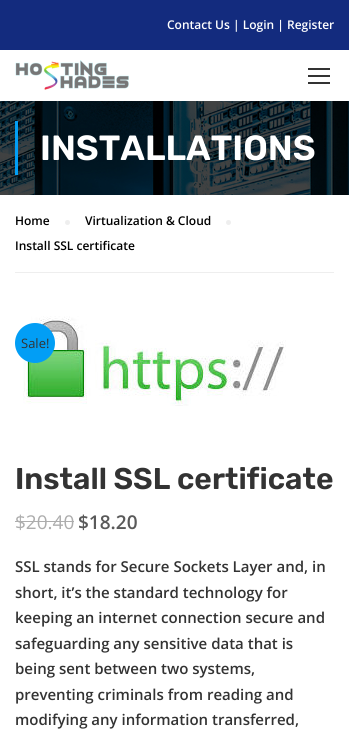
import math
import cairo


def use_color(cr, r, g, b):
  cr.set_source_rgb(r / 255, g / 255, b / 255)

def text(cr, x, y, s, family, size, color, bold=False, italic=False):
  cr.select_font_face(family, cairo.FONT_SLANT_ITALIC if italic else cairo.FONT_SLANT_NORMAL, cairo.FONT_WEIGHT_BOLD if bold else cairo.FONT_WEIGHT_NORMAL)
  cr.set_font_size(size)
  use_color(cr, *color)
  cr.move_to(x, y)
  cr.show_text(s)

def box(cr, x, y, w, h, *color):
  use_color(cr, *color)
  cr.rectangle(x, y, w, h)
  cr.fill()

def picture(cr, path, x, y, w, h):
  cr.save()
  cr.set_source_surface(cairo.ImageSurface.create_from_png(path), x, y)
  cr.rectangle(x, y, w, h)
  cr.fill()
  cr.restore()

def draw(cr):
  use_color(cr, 255, 255, 255)
  cr.paint()
  box(cr, 0, 0, 349, 50, 19, 43, 126)
  picture(cr, "img_01.png", 15, 60, 114, 30)
  box(cr, 308, 68, 22, 2, 51, 51, 51)
  box(cr, 308, 75, 22, 2, 51, 51, 51)
  box(cr, 308, 82, 22, 2, 51, 51, 51)
  picture(cr, "img_02.png", 0, 101, 349, 94)
  box(cr, 15, 121, 3, 54, 2, 158, 245)
  box(cr, 15, 272, 319, 1, 238, 238, 238)
  cr.arc(67.5, 222.5, 2.5, 0, 2 * math.pi)
  cr.fill()
  cr.arc(228.5, 222.5, 2.5, 0, 2 * math.pi)
  cr.fill()
  picture(cr, "img_03.png", 23, 316, 263, 90)
  use_color(cr, 2, 158, 245)
  cr.arc(35, 343, 20, 0, 2 * math.pi)
  cr.fill()
  box(cr, 15, 521, 59, 1, 173, 173, 173)
  text(cr, 167, 29, "Contact Us | Login | Register", "Open Sans SemiBold", 12, (255, 255, 255))
  text(cr, 40, 160, "INSTALLATIONS", "Rubik SemiBold", 35, (255, 255, 255))
  text(cr, 15, 225, "Home", "Open Sans SemiBold", 12, (0, 0, 0))
  text(cr, 85, 225, "Virtualization & Cloud", "Open Sans SemiBold", 12, (0, 0, 0))
  text(cr, 15, 250, "Install SSL certificate", "Open Sans SemiBold", 12, (0, 0, 0))
  text(cr, 21, 348, "Sale!", "Open Sans", 13, (51, 51, 51))
  text(cr, 15, 489, "Install SSL certificate", "Rubik SemiBold", 30, (51, 51, 51))
  text(cr, 15, 529, "$20.40", "Open Sans", 19, (173, 173, 173))
  text(cr, 78, 529, "$18.20", "Open Sans SemiBold", 19, (90, 90, 90))
  text(cr, 15, 572, "SSL stands for Secure Sockets Layer and, in", "Open Sans SemiBold", 15, (51, 51, 51))
  text(cr, 15, 598, "short, it’s the standard technology for", "Open Sans SemiBold", 15, (51, 51, 51))
  text(cr, 15, 623, "keeping an internet connection secure and", "Open Sans SemiBold", 15, (51, 51, 51))
  text(cr, 15, 649, "safeguarding any sensitive data that is", "Open Sans SemiBold", 15, (51, 51, 51))
  text(cr, 15, 674, "being sent between two systems,", "Open Sans SemiBold", 15, (51, 51, 51))
  text(cr, 15, 700, "preventing criminals from reading and", "Open Sans SemiBold", 15, (51, 51, 51))
  text(cr, 15, 725, "modifying any information transferred,", "Open Sans SemiBold", 15, (51, 51, 51))


surface = cairo.ImageSurface(cairo.FORMAT_RGB24, 349, 734)
cr = cairo.Context(surface)
options = cairo.FontOptions()
options.set_hint_metrics(cairo.HINT_METRICS_OFF)
options.set_hint_style(cairo.HINT_STYLE_NONE)
cr.set_font_options(options)
cr.set_miter_limit(4)
draw(cr)
surface.write_to_png("out.png")
